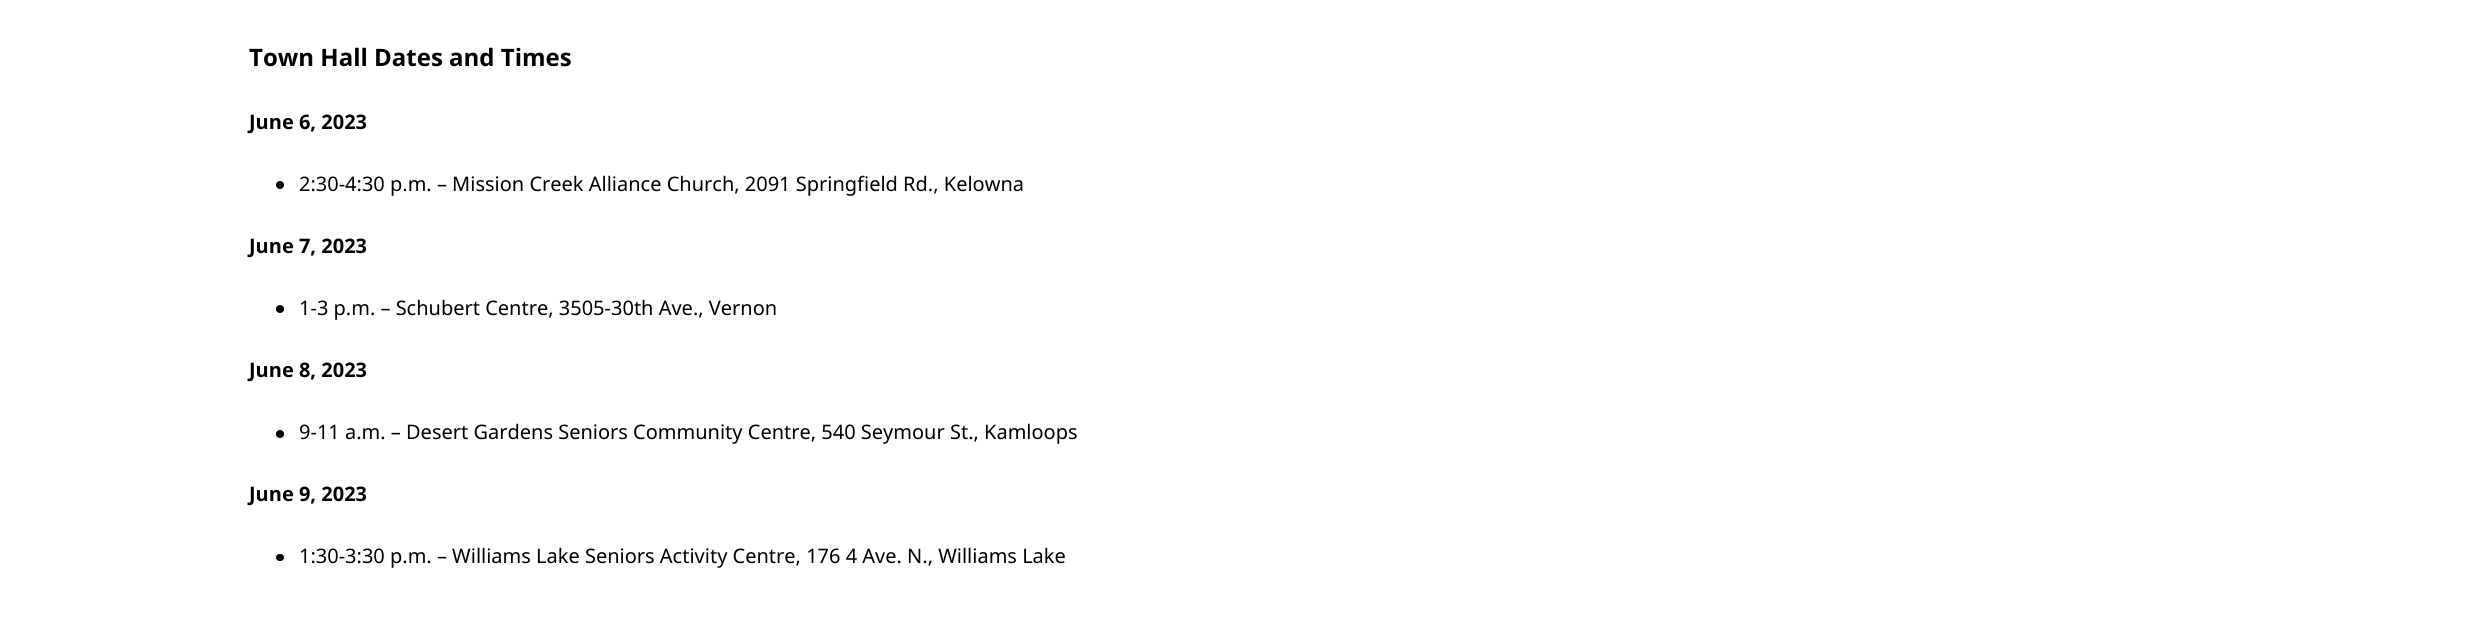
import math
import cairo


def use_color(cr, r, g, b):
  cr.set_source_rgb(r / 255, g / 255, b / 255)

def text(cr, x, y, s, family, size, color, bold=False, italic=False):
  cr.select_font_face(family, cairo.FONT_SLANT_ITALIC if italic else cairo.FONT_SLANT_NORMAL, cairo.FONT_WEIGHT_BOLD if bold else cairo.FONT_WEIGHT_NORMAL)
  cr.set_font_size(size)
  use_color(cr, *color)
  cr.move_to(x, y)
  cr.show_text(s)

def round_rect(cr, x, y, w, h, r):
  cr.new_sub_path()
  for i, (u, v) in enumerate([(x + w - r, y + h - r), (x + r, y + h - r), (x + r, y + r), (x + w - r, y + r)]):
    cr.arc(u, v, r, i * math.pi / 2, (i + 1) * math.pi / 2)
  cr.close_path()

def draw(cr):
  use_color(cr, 255, 255, 255)
  cr.paint()
  use_color(cr, 0, 0, 0)
  cr.arc(280, 185, 4, 0, 2 * math.pi)
  cr.fill()
  cr.arc(280, 309, 4, 0, 2 * math.pi)
  cr.fill()
  cr.arc(280, 434, 4, 0, 2 * math.pi)
  cr.fill()
  round_rect(cr, 276, 554, 8, 7, 3.5)
  cr.fill()
  text(cr, 249, 66, "Town Hall Dates and Times", "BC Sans", 24, (0, 0, 0), bold=True)
  text(cr, 249, 129, "June 6, 2023", "BC Sans", 20, (0, 0, 0), bold=True)
  text(cr, 299, 191, "2:30-4:30 p.m. – Mission Creek Alliance Church, 2091 Springfield Rd., Kelowna", "BC Sans", 20, (0, 0, 0))
  text(cr, 249, 253, "June 7, 2023", "BC Sans", 20, (0, 0, 0), bold=True)
  text(cr, 299, 315, "1-3 p.m. – Schubert Centre, 3505-30th Ave., Vernon", "BC Sans", 20, (0, 0, 0))
  text(cr, 249, 377, "June 8, 2023", "BC Sans", 20, (0, 0, 0), bold=True)
  text(cr, 299, 439, "9-11 a.m. – Desert Gardens Seniors Community Centre, 540 Seymour St., Kamloops", "BC Sans", 20, (0, 0, 0))
  text(cr, 249, 501, "June 9, 2023", "BC Sans", 20, (0, 0, 0), bold=True)
  text(cr, 299, 563, "1:30-3:30 p.m. – Williams Lake Seniors Activity Centre, 176 4 Ave. N., Williams Lake", "BC Sans", 20, (0, 0, 0))


surface = cairo.ImageSurface(cairo.FORMAT_RGB24, 2486, 619)
cr = cairo.Context(surface)
options = cairo.FontOptions()
options.set_hint_metrics(cairo.HINT_METRICS_OFF)
options.set_hint_style(cairo.HINT_STYLE_NONE)
cr.set_font_options(options)
cr.set_miter_limit(4)
draw(cr)
surface.write_to_png("out.png")
